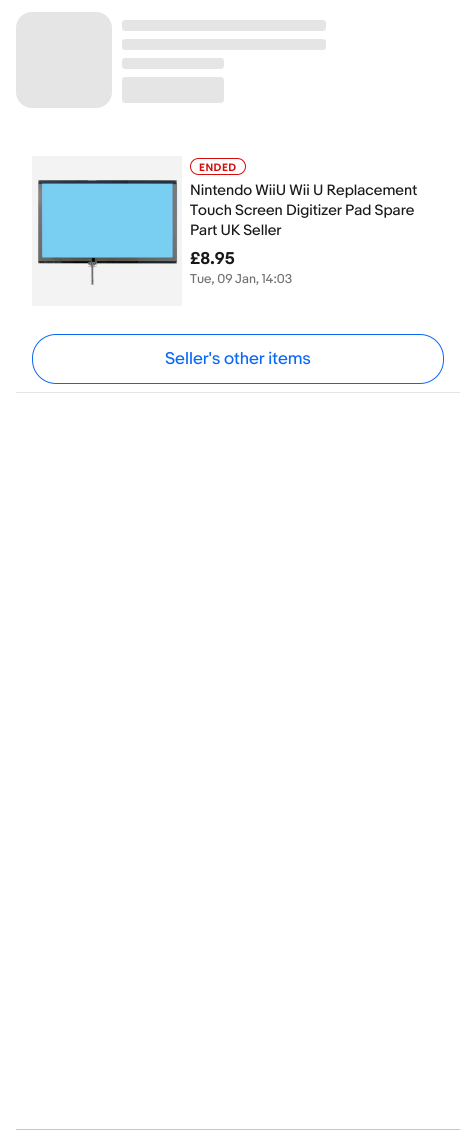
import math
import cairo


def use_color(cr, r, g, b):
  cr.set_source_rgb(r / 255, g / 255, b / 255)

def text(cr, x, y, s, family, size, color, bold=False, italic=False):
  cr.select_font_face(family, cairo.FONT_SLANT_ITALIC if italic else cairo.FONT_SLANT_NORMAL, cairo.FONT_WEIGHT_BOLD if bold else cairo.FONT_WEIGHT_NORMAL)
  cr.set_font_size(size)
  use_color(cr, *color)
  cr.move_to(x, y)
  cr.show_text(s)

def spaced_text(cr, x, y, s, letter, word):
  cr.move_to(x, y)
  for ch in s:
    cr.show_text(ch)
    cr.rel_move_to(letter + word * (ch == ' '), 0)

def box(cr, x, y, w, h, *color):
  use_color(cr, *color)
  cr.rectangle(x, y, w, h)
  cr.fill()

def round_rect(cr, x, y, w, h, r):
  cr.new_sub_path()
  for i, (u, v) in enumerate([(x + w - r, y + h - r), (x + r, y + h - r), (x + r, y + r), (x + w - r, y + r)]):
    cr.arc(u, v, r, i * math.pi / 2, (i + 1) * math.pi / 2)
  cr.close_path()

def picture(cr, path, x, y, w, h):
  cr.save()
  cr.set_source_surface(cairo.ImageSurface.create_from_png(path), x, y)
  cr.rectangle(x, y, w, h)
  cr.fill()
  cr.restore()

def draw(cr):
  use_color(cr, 255, 255, 255)
  cr.paint()
  use_color(cr, 229, 229, 229)
  round_rect(cr, 16, 12, 96, 96, 16)
  cr.fill()
  round_rect(cr, 122, 20, 204, 11, 3)
  cr.fill()
  round_rect(cr, 122, 39, 204, 11, 3)
  cr.fill()
  round_rect(cr, 122, 58, 102, 11, 3)
  cr.fill()
  round_rect(cr, 122, 77, 102, 26, 3)
  cr.fill()
  box(cr, 16, 392, 444, 1, 229, 229, 229)
  picture(cr, "img_01.png", 38, 180, 140, 105)
  cr.set_source_rgba(0, 0, 0, 0.05)
  cr.rectangle(32, 156, 150, 150)
  cr.fill()
  round_rect(cr, 190.5, 158.5, 55, 16, 8)
  use_color(cr, 213, 11, 11)
  cr.set_line_width(1)
  cr.stroke()
  round_rect(cr, 32.5, 334.5, 411, 49, 23.5)
  use_color(cr, 9, 104, 246)
  cr.stroke()
  box(cr, 16, 1129, 444, 1, 199, 199, 199)
  cr.select_font_face("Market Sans", cairo.FONT_SLANT_NORMAL, cairo.FONT_WEIGHT_BOLD)
  cr.set_font_size(10)
  use_color(cr, 213, 11, 11)
  spaced_text(cr, 199, 171, "ENDED", 0.5, 0)
  text(cr, 190, 195, "Nintendo WiiU Wii U Replacement", "Market Sans", 14, (25, 25, 25))
  text(cr, 190, 215, "Touch Screen Digitizer Pad Spare", "Market Sans", 14, (25, 25, 25))
  text(cr, 190, 235, "Part UK Seller", "Market Sans", 14, (25, 25, 25))
  text(cr, 190, 264, "£8.95", "Market Sans", 16, (25, 25, 25), bold=True)
  text(cr, 190, 283, "Tue, 09 Jan, 14:03", "Market Sans", 12, (112, 112, 112))
  text(cr, 165, 364, "Seller's other items", "Market Sans", 16, (9, 104, 246))


surface = cairo.ImageSurface(cairo.FORMAT_RGB24, 476, 1140)
cr = cairo.Context(surface)
options = cairo.FontOptions()
options.set_hint_metrics(cairo.HINT_METRICS_OFF)
options.set_hint_style(cairo.HINT_STYLE_NONE)
cr.set_font_options(options)
cr.set_miter_limit(4)
draw(cr)
surface.write_to_png("out.png")
